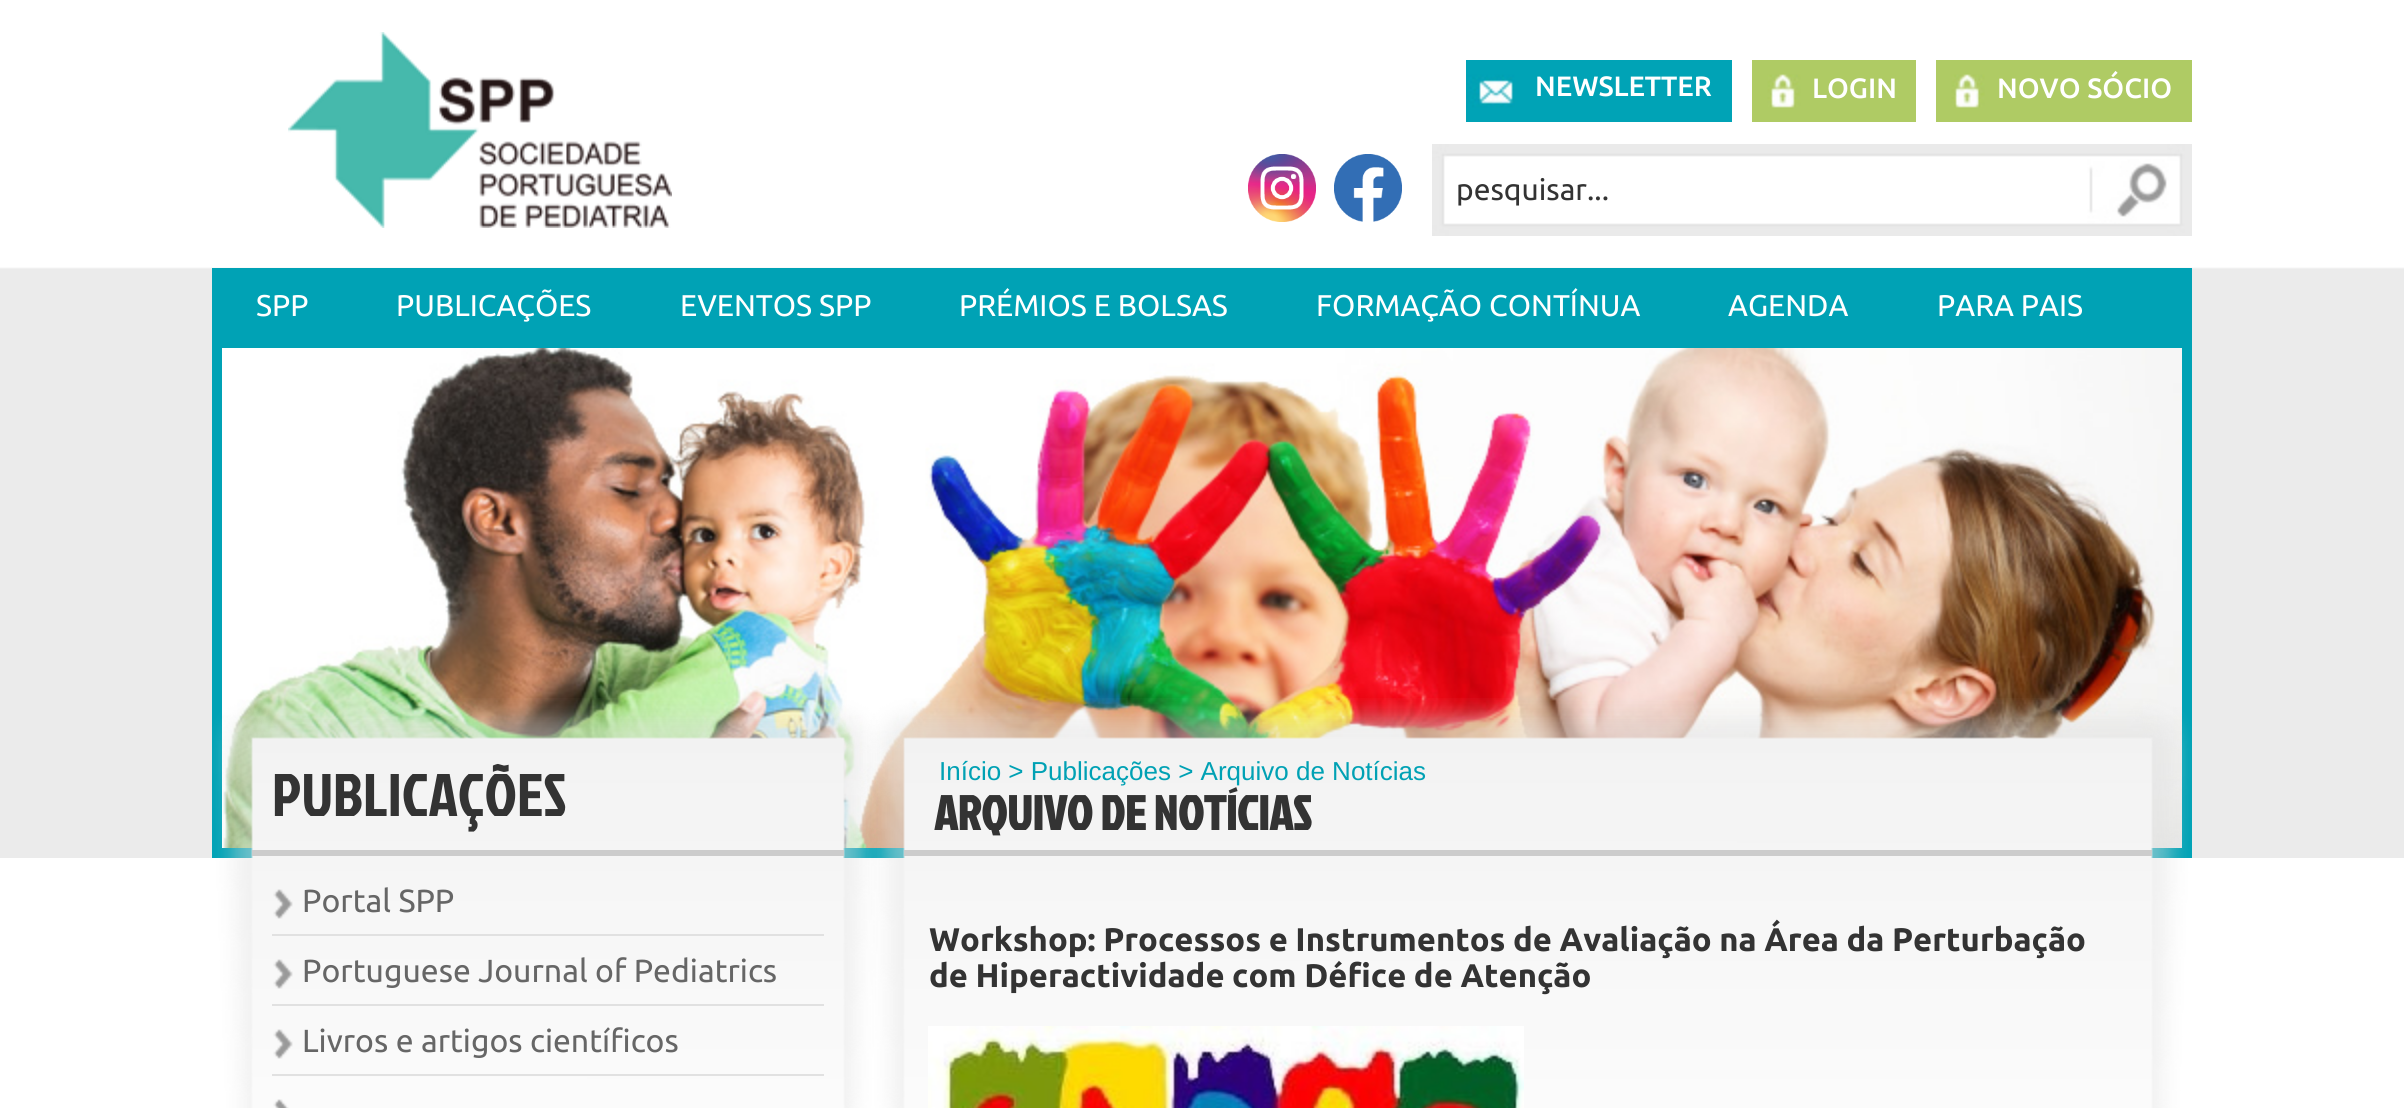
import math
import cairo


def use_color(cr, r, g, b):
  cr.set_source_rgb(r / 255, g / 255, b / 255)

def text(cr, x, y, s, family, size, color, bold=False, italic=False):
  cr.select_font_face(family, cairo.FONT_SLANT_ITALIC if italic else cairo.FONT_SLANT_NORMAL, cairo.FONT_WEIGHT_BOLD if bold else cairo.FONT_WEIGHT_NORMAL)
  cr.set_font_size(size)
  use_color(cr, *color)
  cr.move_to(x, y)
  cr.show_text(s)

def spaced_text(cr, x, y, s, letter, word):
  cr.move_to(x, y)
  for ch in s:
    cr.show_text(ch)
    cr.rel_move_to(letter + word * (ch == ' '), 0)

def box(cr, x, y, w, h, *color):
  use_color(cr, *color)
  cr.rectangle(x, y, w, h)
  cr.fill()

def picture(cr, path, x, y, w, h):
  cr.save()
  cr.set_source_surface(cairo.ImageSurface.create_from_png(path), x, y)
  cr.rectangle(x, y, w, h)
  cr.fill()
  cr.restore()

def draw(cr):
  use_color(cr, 255, 255, 255)
  cr.paint()
  picture(cr, "img_01.png", 0, 267, 2404, 591)
  picture(cr, "img_02.png", 288, 32, 384, 196)
  picture(cr, "img_03.png", 1466, 60, 266, 62)
  picture(cr, "img_04.png", 1752, 60, 164, 62)
  picture(cr, "img_05.png", 1936, 60, 256, 62)
  picture(cr, "img_06.png", 1248, 154, 68, 68)
  picture(cr, "img_07.png", 1334, 154, 68, 68)
  picture(cr, "img_08.png", 1432, 144, 760, 92)
  box(cr, 212, 268, 1980, 590, 0, 162, 181)
  picture(cr, "img_09.png", 222, 348, 1960, 500)
  picture(cr, "img_10.png", 212, 698, 668, 410)
  box(cr, 252, 850, 592, 6, 204, 204, 204)
  picture(cr, "img_11.png", 273, 889, 20, 30)
  box(cr, 272, 934, 552, 2, 225, 225, 225)
  picture(cr, "img_12.png", 273, 959, 20, 30)
  box(cr, 272, 1004, 552, 2, 225, 225, 225)
  picture(cr, "img_13.png", 273, 1029, 20, 30)
  box(cr, 272, 1074, 552, 2, 225, 225, 225)
  picture(cr, "img_14.png", 273, 1099, 16, 9)
  picture(cr, "img_15.png", 867, 698, 1325, 410)
  box(cr, 904, 850, 1248, 6, 204, 204, 204)
  picture(cr, "img_16.png", 928, 1026, 596, 82)
  text(cr, 1535, 96, "NEWSLETTER", "Ubuntu Medium", 28, (255, 255, 255))
  text(cr, 1812, 98, "LOGIN", "Ubuntu Medium", 28, (255, 255, 255))
  text(cr, 1997, 98, "NOVO SÓCIO", "Ubuntu Medium", 28, (255, 255, 255))
  text(cr, 1456, 200, "pesquisar...", "Ubuntu", 30, (51, 51, 51))
  text(cr, 256, 316, "SPP", "Ubuntu", 30, (255, 255, 255))
  text(cr, 396, 316, "PUBLICAÇÕES", "Ubuntu", 30, (255, 255, 255))
  text(cr, 680, 316, "EVENTOS SPP", "Ubuntu", 30, (255, 255, 255))
  text(cr, 959, 316, "PRÉMIOS E BOLSAS", "Ubuntu", 30, (255, 255, 255))
  text(cr, 1316, 316, "FORMAÇÃO CONTÍNUA", "Ubuntu", 30, (255, 255, 255))
  text(cr, 1728, 316, "AGENDA", "Ubuntu", 30, (255, 255, 255))
  text(cr, 1937, 316, "PARA PAIS", "Ubuntu", 30, (255, 255, 255))
  text(cr, 272, 816, "PUBLICAÇÕES", "Jockey One", 60, (51, 51, 51))
  text(cr, 302, 912, "Portal SPP", "Ubuntu", 32, (102, 102, 102))
  text(cr, 302, 982, "Portuguese Journal of Pediatrics", "Ubuntu", 32, (102, 102, 102))
  text(cr, 302, 1052, "Livros e artigos científicos", "Ubuntu", 32, (102, 102, 102))
  text(cr, 939, 780, "Início > Publicações > Arquivo de Notícias", "Liberation Sans", 26, (0, 161, 180))
  text(cr, 934, 830, "ARQUIVO DE NOTÍCIAS", "Jockey One", 48, (51, 51, 51), bold=True)
  cr.select_font_face("Ubuntu", cairo.FONT_SLANT_NORMAL, cairo.FONT_WEIGHT_BOLD)
  cr.set_font_size(32.75)
  spaced_text(cr, 929, 951, "Workshop: Processos e Instrumentos de Avaliação na Área da Perturbação", 0, -0.25)
  spaced_text(cr, 929, 987, "de Hiperactividade com Défice de Atenção", 0, -0.25)


surface = cairo.ImageSurface(cairo.FORMAT_RGB24, 2404, 1108)
cr = cairo.Context(surface)
options = cairo.FontOptions()
options.set_hint_metrics(cairo.HINT_METRICS_OFF)
options.set_hint_style(cairo.HINT_STYLE_NONE)
cr.set_font_options(options)
cr.set_miter_limit(4)
draw(cr)
surface.write_to_png("out.png")
